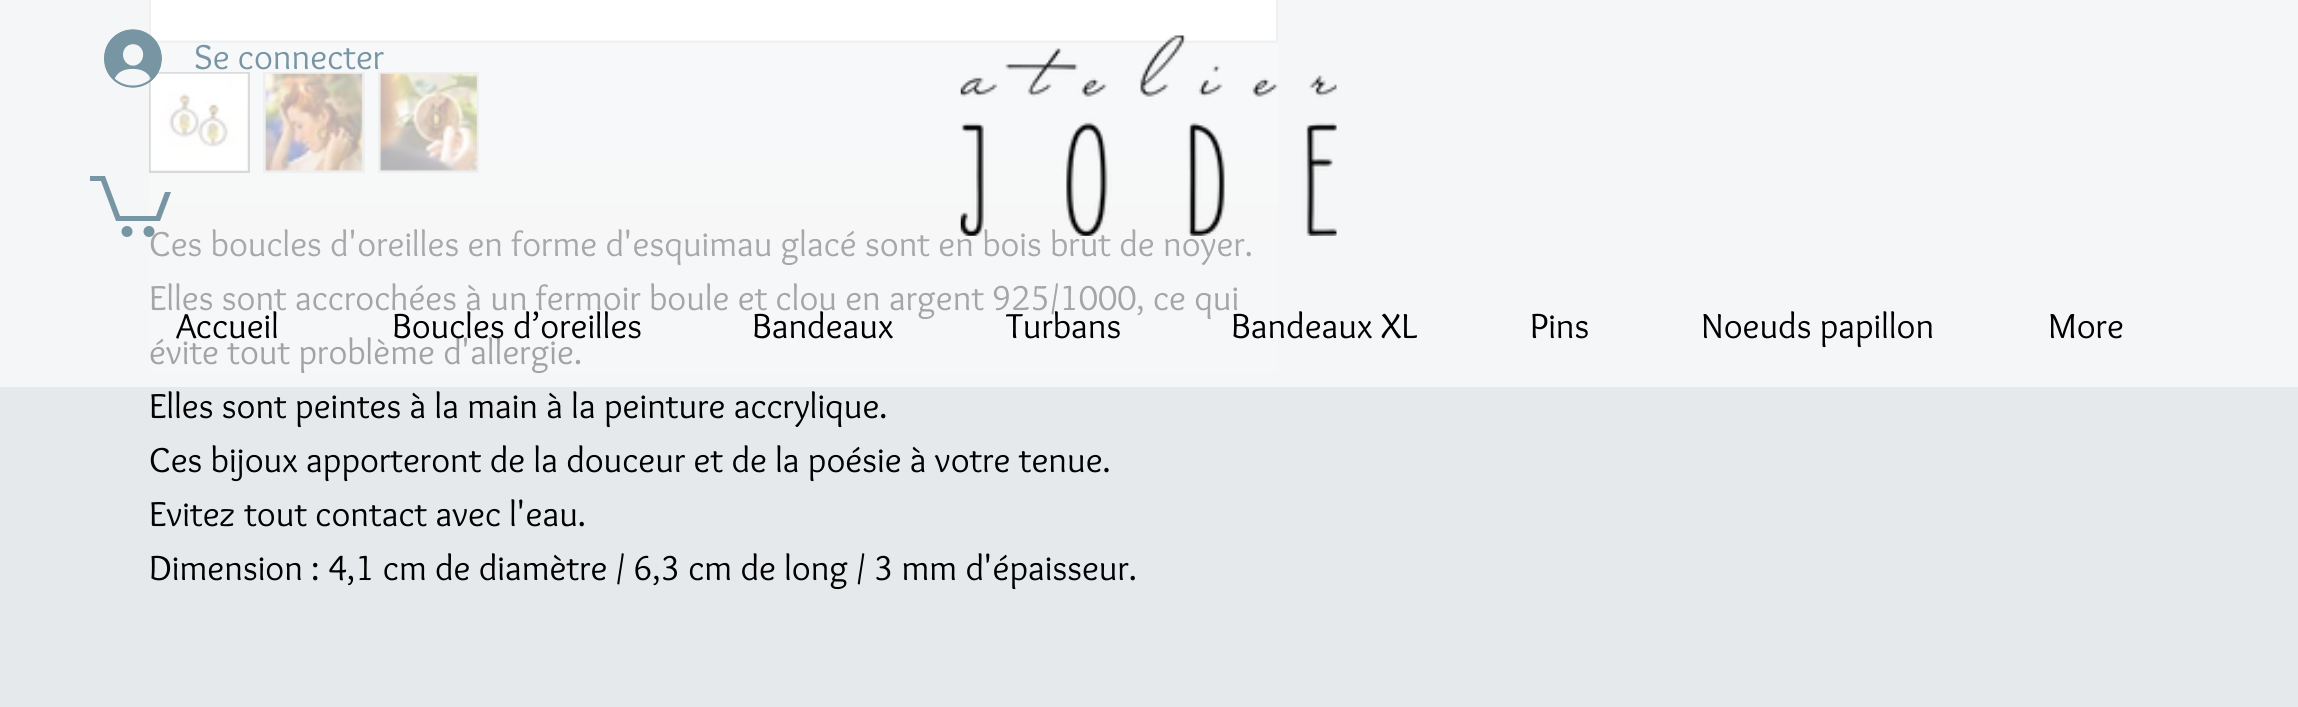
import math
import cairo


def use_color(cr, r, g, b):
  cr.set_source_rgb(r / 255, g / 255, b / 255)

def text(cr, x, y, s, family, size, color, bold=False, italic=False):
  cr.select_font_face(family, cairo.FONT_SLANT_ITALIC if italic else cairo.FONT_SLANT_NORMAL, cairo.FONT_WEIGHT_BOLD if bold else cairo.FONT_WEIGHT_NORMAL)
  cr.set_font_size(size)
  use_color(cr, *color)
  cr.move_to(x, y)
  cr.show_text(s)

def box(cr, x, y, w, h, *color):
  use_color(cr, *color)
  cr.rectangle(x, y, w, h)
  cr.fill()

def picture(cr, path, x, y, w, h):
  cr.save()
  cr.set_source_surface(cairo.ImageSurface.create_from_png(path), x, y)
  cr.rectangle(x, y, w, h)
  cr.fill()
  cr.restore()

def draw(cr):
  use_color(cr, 230, 233, 235)
  cr.paint()
  box(cr, 0, 0, 2298, 387, 245, 246, 247)
  use_color(cr, 119, 149, 163)
  cr.arc(127, 231.5, 5.5, 0, 2 * math.pi)
  cr.fill()
  cr.rectangle(150, -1, 1127, 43)
  use_color(cr, 235, 235, 235)
  cr.stroke()
  box(cr, 151, 0, 1125, 40, 255, 255, 255)
  use_color(cr, 235, 235, 235)
  cr.rectangle(150, 73, 99, 99)
  cr.fill_preserve()
  use_color(cr, 209, 208, 208)
  cr.stroke()
  picture(cr, "img_04.png", 150, 73, 98, 98)
  box(cr, 263, 72, 102, 101, 235, 235, 235)
  picture(cr, "img_05.png", 265, 73, 98, 98)
  box(cr, 378, 72, 101, 101, 235, 235, 235)
  picture(cr, "img_06.png", 379, 73, 99, 98)
  text(cr, 1530, 338, "Pins", "Overlock", 36, (0, 0, 0))
  text(cr, 1701, 338, "Noeuds papillon", "Overlock", 36, (0, 0, 0))
  text(cr, 2048, 338, "More", "Overlock", 36, (0, 0, 0))
  text(cr, 149, 256, "Ces boucles d'oreilles en forme d'esquimau glacé sont en bois brut de noyer.", "Overlock", 36, (153, 153, 153))
  text(cr, 149, 310, "Elles sont accrochées à un fermoir boule et clou en argent 925/1000, ce qui", "Overlock", 36, (153, 153, 153))
  text(cr, 149, 364, "évite tout problème d'allergie.", "Overlock", 36, (153, 153, 153))
  picture(cr, "img_01.png", 149, 0, 1129, 373)
  text(cr, 1231, 338, "Bandeaux XL", "Overlock", 36, (0, 0, 0))
  text(cr, 1006, 338, "Turbans", "Overlock", 36, (0, 0, 0))
  text(cr, 752, 338, "Bandeaux", "Overlock", 36, (0, 0, 0))
  text(cr, 392, 338, "Boucles d’oreilles", "Overlock", 36, (0, 0, 0))
  text(cr, 176, 338, "Accueil", "Overlock", 36, (0, 0, 0))
  picture(cr, "img_03.png", 960, 35, 377, 201)
  use_color(cr, 119, 149, 163)
  cr.arc(149, 231.5, 5.5, 0, 2 * math.pi)
  cr.fill()
  cr.new_path()
  cr.move_to(171, 192)
  cr.line_to(160, 221)
  cr.line_to(116, 221)
  cr.line_to(101, 181)
  cr.line_to(90, 181)
  cr.line_to(90, 176)
  cr.line_to(105, 176)
  cr.line_to(120, 216)
  cr.line_to(156, 216)
  cr.line_to(165, 192)
  cr.fill()
  picture(cr, "img_02.png", 104, 29, 58, 59)
  text(cr, 194, 69, "Se connecter", "Overlock", 36, (119, 149, 163))
  text(cr, 149, 418, "Elles sont peintes à la main à la peinture accrylique.", "Overlock", 36, (0, 0, 0))
  text(cr, 149, 472, "Ces bijoux apporteront de la douceur et de la poésie à votre tenue.", "Overlock", 36, (0, 0, 0))
  text(cr, 149, 526, "Evitez tout contact avec l'eau.", "Overlock", 36, (0, 0, 0))
  text(cr, 149, 580, "Dimension : 4,1 cm de diamètre / 6,3 cm de long / 3 mm d'épaisseur.", "Overlock", 36, (0, 0, 0))


surface = cairo.ImageSurface(cairo.FORMAT_RGB24, 2298, 707)
cr = cairo.Context(surface)
options = cairo.FontOptions()
options.set_hint_metrics(cairo.HINT_METRICS_OFF)
options.set_hint_style(cairo.HINT_STYLE_NONE)
cr.set_font_options(options)
cr.set_miter_limit(4)
draw(cr)
surface.write_to_png("out.png")
